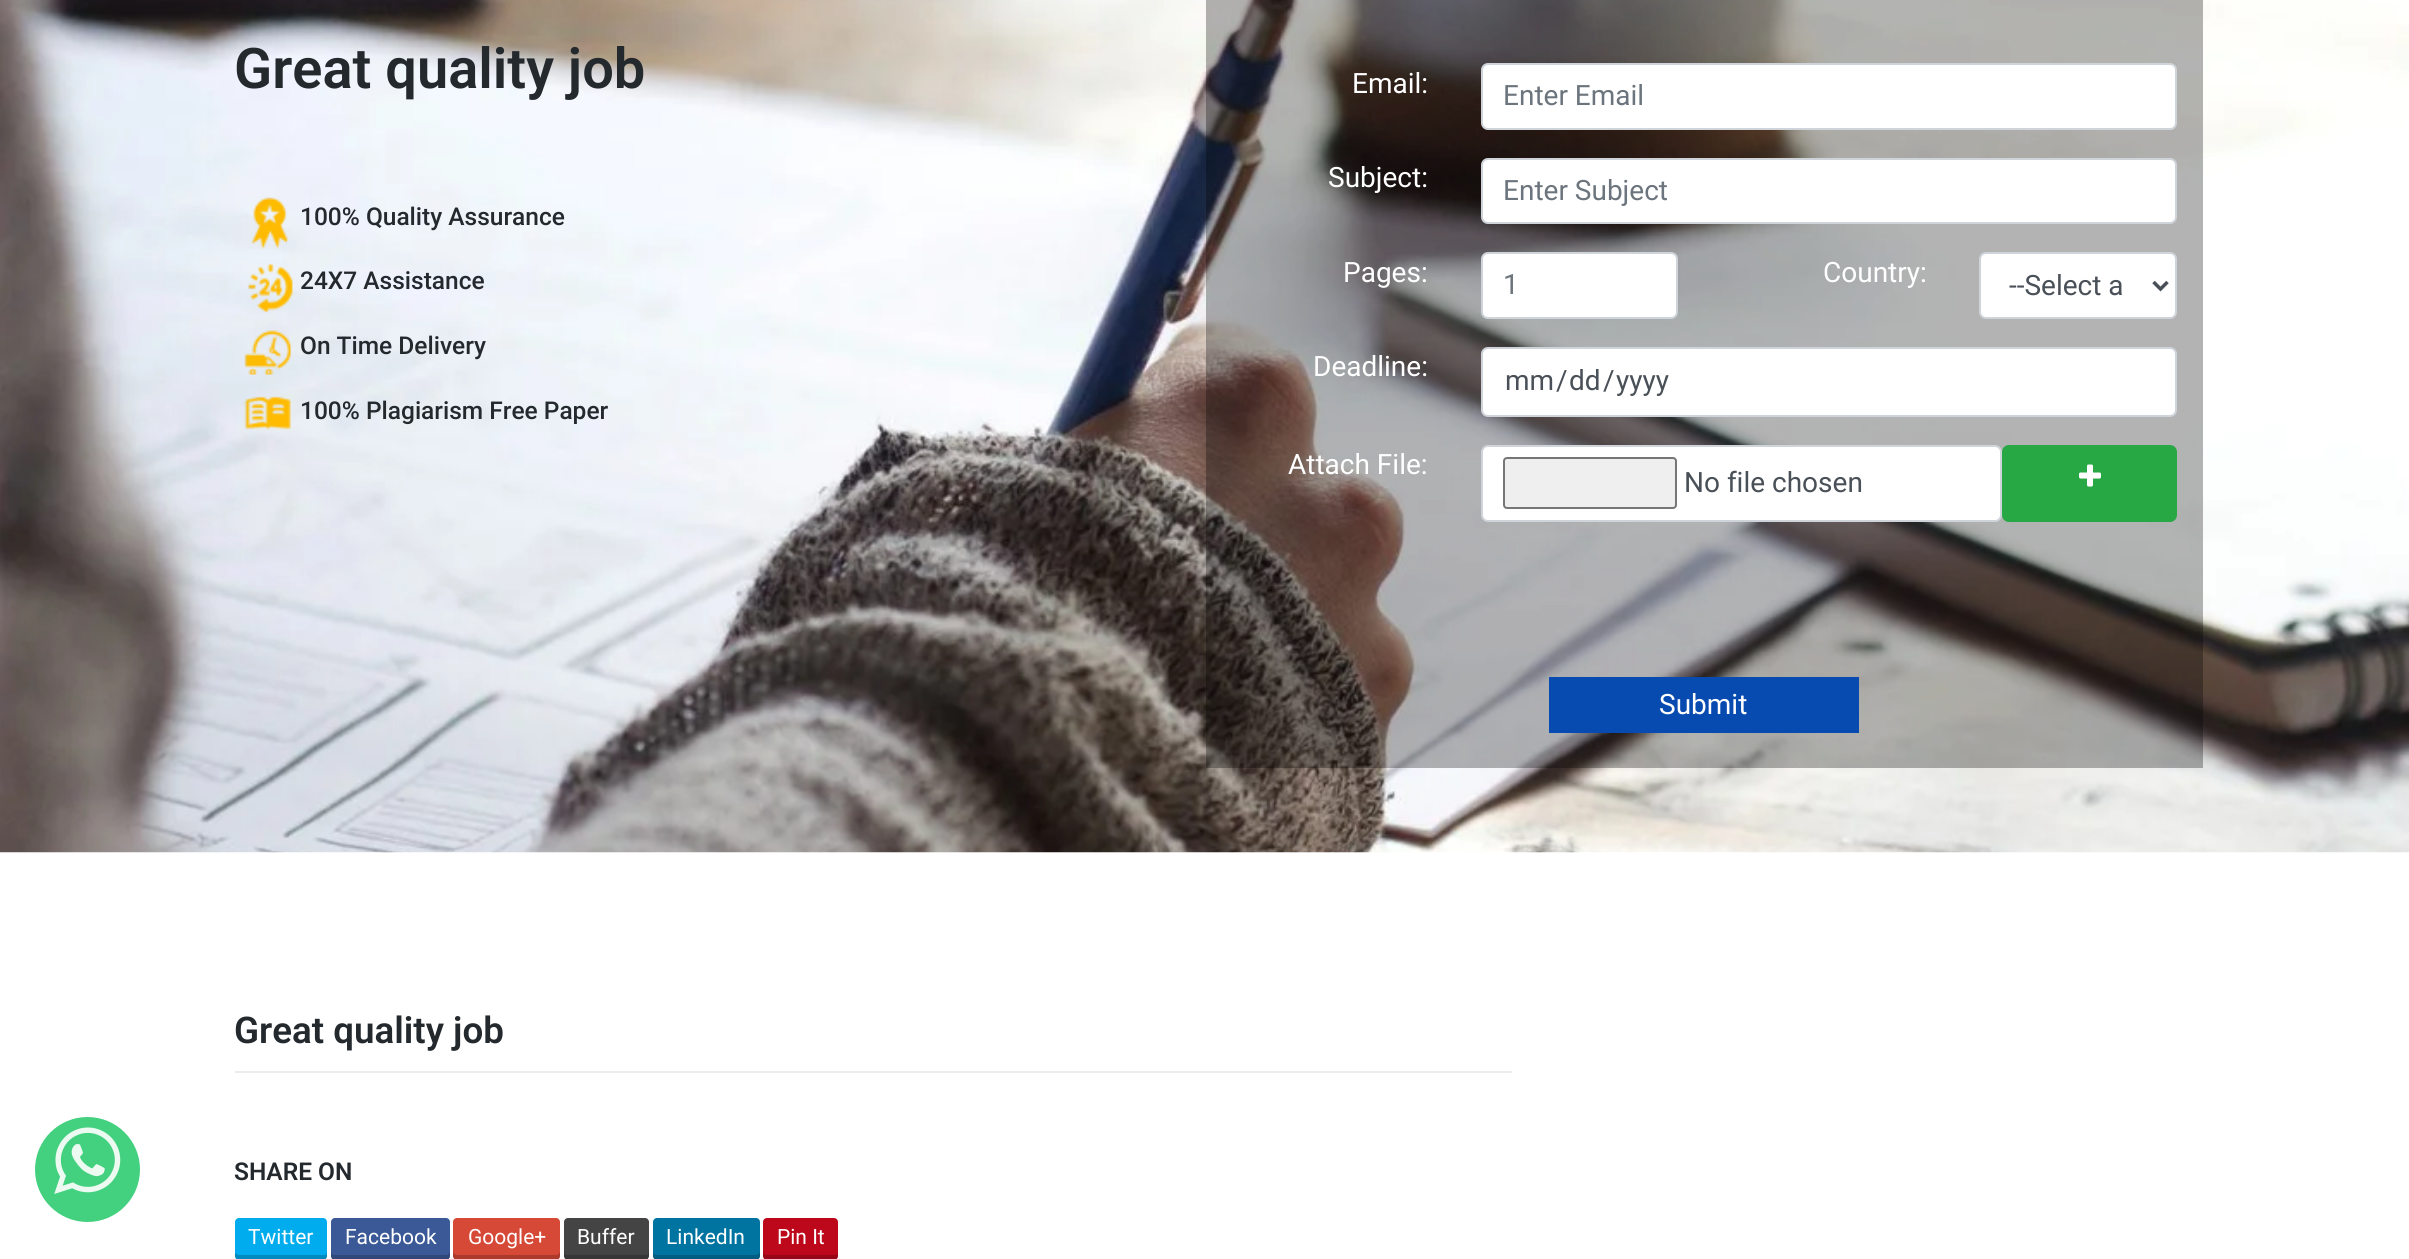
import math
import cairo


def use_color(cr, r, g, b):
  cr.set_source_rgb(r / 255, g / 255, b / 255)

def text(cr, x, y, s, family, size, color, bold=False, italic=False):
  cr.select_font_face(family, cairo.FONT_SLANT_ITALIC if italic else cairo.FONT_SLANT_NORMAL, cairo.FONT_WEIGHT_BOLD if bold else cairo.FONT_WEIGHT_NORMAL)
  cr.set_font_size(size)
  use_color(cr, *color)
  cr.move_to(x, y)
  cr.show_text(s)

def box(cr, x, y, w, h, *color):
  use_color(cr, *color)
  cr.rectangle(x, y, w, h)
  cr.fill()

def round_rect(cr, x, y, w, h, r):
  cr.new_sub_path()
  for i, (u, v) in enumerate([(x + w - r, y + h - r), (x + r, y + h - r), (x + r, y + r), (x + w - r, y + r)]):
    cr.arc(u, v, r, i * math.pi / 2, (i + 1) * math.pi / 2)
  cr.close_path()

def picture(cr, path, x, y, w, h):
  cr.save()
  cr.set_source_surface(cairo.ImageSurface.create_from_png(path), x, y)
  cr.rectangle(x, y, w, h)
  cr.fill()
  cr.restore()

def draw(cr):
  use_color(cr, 255, 255, 255)
  cr.paint()
  picture(cr, "img_01.png", 0, 0, 2409, 853)
  picture(cr, "img_02.png", 251, 197, 37, 52)
  picture(cr, "img_03.png", 248, 263, 45, 49)
  picture(cr, "img_04.png", 244, 330, 47, 45)
  picture(cr, "img_05.png", 244, 396, 47, 34)
  cr.set_source_rgba(0, 0, 0, 0.3)
  cr.rectangle(1206, 0, 997, 768)
  cr.fill()
  use_color(cr, 255, 255, 255)
  round_rect(cr, 1482, 64, 694, 65, 6)
  cr.fill_preserve()
  use_color(cr, 206, 212, 218)
  cr.stroke()
  use_color(cr, 255, 255, 255)
  round_rect(cr, 1482, 159, 694, 64, 6)
  cr.fill_preserve()
  use_color(cr, 206, 212, 218)
  cr.stroke()
  use_color(cr, 255, 255, 255)
  round_rect(cr, 1482, 253, 195, 65, 6)
  cr.fill_preserve()
  use_color(cr, 206, 212, 218)
  cr.stroke()
  use_color(cr, 255, 255, 255)
  round_rect(cr, 1980, 253, 196, 65, 6)
  cr.fill_preserve()
  use_color(cr, 206, 212, 218)
  cr.stroke()
  cr.new_path()
  cr.move_to(2153.5, 282)
  cr.line_to(2160.5, 289)
  cr.line_to(2167.5, 282)
  use_color(cr, 73, 80, 87)
  cr.set_line_width(3.5)
  cr.stroke()
  use_color(cr, 255, 255, 255)
  round_rect(cr, 1482, 348, 694, 68, 6)
  cr.fill_preserve()
  use_color(cr, 206, 212, 218)
  cr.set_line_width(2)
  cr.stroke()
  use_color(cr, 255, 255, 255)
  round_rect(cr, 1482, 446, 519, 75, 6)
  cr.fill_preserve()
  use_color(cr, 206, 212, 218)
  cr.stroke()
  use_color(cr, 239, 239, 239)
  round_rect(cr, 1504, 458, 172, 50, 3)
  cr.fill_preserve()
  use_color(cr, 118, 118, 118)
  cr.stroke()
  use_color(cr, 40, 167, 69)
  round_rect(cr, 2003, 446, 173, 75, 6)
  cr.fill_preserve()
  cr.stroke()
  picture(cr, "img_06.png", 2079, 464, 22, 23)
  box(cr, 1549, 677, 310, 56, 7, 75, 177)
  use_color(cr, 67, 209, 127)
  cr.arc(87.5, 1169.5, 52.5, 0, 2 * math.pi)
  cr.fill()
  picture(cr, "img_07.png", 54, 1127, 67, 67)
  box(cr, 235, 1071, 1277, 2, 234, 236, 239)
  use_color(cr, 0, 172, 237)
  round_rect(cr, 235, 1218, 92, 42, 4)
  cr.fill()
  cr.set_source_rgba(0, 0, 0, 0.2)
  cr.new_path()
  cr.move_to(235, 1253)
  cr.line_to(235, 1256)
  cr.curve_to(235, 1258, 237, 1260, 239, 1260)
  cr.line_to(323, 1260)
  cr.curve_to(325, 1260, 327, 1258, 327, 1256)
  cr.line_to(327, 1251)
  cr.line_to(327, 1252)
  cr.curve_to(327, 1253, 326, 1255, 325, 1255)
  cr.line_to(238, 1255)
  cr.close_path()
  cr.fill()
  use_color(cr, 59, 89, 151)
  round_rect(cr, 331, 1218, 119, 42, 4)
  cr.fill()
  cr.set_source_rgba(0, 0, 0, 0.2)
  cr.new_path()
  cr.move_to(331, 1251)
  cr.line_to(331, 1256)
  cr.curve_to(331, 1258, 333, 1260, 335, 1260)
  cr.line_to(446, 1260)
  cr.curve_to(448, 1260, 450, 1258, 450, 1256)
  cr.line_to(450, 1251)
  cr.curve_to(450, 1253, 448, 1255, 446, 1255)
  cr.line_to(334, 1255)
  cr.curve_to(332, 1255, 331, 1253, 331, 1251)
  cr.close_path()
  cr.fill()
  use_color(cr, 214, 73, 55)
  round_rect(cr, 453, 1218, 107, 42, 4)
  cr.fill()
  cr.set_source_rgba(0, 0, 0, 0.2)
  cr.new_path()
  cr.move_to(453, 1251)
  cr.line_to(453, 1256)
  cr.curve_to(453, 1258, 455, 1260, 457, 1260)
  cr.line_to(556, 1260)
  cr.curve_to(558, 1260, 560, 1258, 560, 1256)
  cr.line_to(560, 1251)
  cr.curve_to(560, 1253, 558, 1255, 556, 1255)
  cr.line_to(457, 1255)
  cr.curve_to(455, 1255, 453, 1253, 453, 1251)
  cr.close_path()
  cr.fill()
  use_color(cr, 68, 68, 68)
  round_rect(cr, 564, 1218, 85, 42, 4)
  cr.fill()
  cr.set_source_rgba(0, 0, 0, 0.2)
  cr.new_path()
  cr.move_to(564, 1251)
  cr.curve_to(564, 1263, 567, 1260, 581, 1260)
  cr.line_to(632, 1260)
  cr.curve_to(646, 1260, 649, 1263, 649, 1251)
  cr.curve_to(649, 1253, 648, 1255, 646, 1255)
  cr.line_to(567, 1255)
  cr.curve_to(565, 1255, 564, 1253, 564, 1251)
  cr.close_path()
  cr.fill()
  use_color(cr, 0, 116, 161)
  round_rect(cr, 653, 1218, 107, 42, 4)
  cr.fill()
  cr.set_source_rgba(0, 0, 0, 0.2)
  cr.new_path()
  cr.move_to(653, 1251)
  cr.line_to(653, 1256)
  cr.curve_to(653, 1258, 655, 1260, 657, 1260)
  cr.line_to(756, 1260)
  cr.curve_to(758, 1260, 760, 1258, 760, 1256)
  cr.line_to(760, 1251)
  cr.curve_to(760, 1253, 758, 1255, 756, 1255)
  cr.line_to(656, 1255)
  cr.curve_to(654, 1255, 653, 1253, 653, 1251)
  cr.close_path()
  cr.fill()
  use_color(cr, 189, 8, 28)
  round_rect(cr, 763, 1218, 75, 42, 4)
  cr.fill()
  cr.set_source_rgba(0, 0, 0, 0.2)
  cr.new_path()
  cr.move_to(763, 1251)
  cr.curve_to(763, 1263, 765, 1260, 778, 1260)
  cr.line_to(823, 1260)
  cr.curve_to(836, 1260, 838, 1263, 838, 1251)
  cr.curve_to(838, 1253, 837, 1255, 835, 1255)
  cr.line_to(766, 1255)
  cr.curve_to(765, 1255, 763, 1253, 763, 1251)
  cr.close_path()
  cr.fill()
  text(cr, 234, 88, "Great quality job", "Roboto SemiBold", 56, (36, 41, 46))
  text(cr, 300, 225, "100% Quality Assurance", "Roboto Medium", 24.5, (36, 41, 46))
  text(cr, 300, 289, "24X7 Assistance", "Roboto Medium", 24.5, (36, 41, 46))
  text(cr, 300, 354, "On Time Delivery", "Roboto Medium", 24.5, (36, 41, 46))
  text(cr, 300, 419, "100% Plagiarism Free Paper", "Roboto Medium", 24.5, (36, 41, 46))
  text(cr, 1352, 93, "Email:", "Roboto", 28, (255, 255, 255))
  text(cr, 1503, 105, "Enter Email", "Roboto", 28, (108, 117, 125))
  text(cr, 1328, 187, "Subject:", "Roboto", 28, (255, 255, 255))
  text(cr, 1503, 200, "Enter Subject", "Roboto", 28, (108, 117, 125))
  text(cr, 1343, 282, "Pages:", "Roboto", 28, (255, 255, 255))
  text(cr, 1503, 294, "1", "Roboto", 28, (108, 117, 125))
  text(cr, 1823, 282, "Country:", "Roboto", 28, (255, 255, 255))
  text(cr, 2009, 295, "--Select a", "Roboto", 28, (73, 80, 87))
  text(cr, 1313, 376, "Deadline:", "Roboto", 28, (255, 255, 255))
  text(cr, 1505, 390, "mm", "Roboto", 28, (73, 80, 87))
  text(cr, 1556, 390, "/", "Roboto", 28, (73, 80, 87))
  text(cr, 1569, 390, "dd", "Roboto", 28, (73, 80, 87))
  text(cr, 1603, 390, "/", "Roboto", 28, (73, 80, 87))
  text(cr, 1616, 390, "yyyy", "Roboto", 28, (73, 80, 87))
  text(cr, 1288, 474, "Attach File:", "Roboto", 28, (255, 255, 255))
  text(cr, 1684, 492, "No file chosen", "Roboto", 28, (73, 80, 87))
  text(cr, 1659, 714, "Submit", "Roboto", 28, (255, 255, 255))
  text(cr, 234, 1043, "Great quality job", "Roboto SemiBold", 36.75, (36, 41, 46))
  text(cr, 234, 1180, "SHARE ON", "Roboto SemiBold", 24.5, (36, 41, 46))
  text(cr, 248, 1244, "Twitter", "Roboto", 21, (255, 255, 255))
  text(cr, 345, 1244, "Facebook", "Roboto", 21, (255, 255, 255))
  text(cr, 468, 1244, "Google+", "Roboto", 21, (255, 255, 255))
  text(cr, 577, 1244, "Buffer", "Roboto", 21, (255, 255, 255))
  text(cr, 666, 1244, "LinkedIn", "Roboto", 21, (255, 255, 255))
  text(cr, 777, 1244, "Pin It", "Roboto", 21, (255, 255, 255))


surface = cairo.ImageSurface(cairo.FORMAT_RGB24, 2409, 1259)
cr = cairo.Context(surface)
options = cairo.FontOptions()
options.set_hint_metrics(cairo.HINT_METRICS_OFF)
options.set_hint_style(cairo.HINT_STYLE_NONE)
cr.set_font_options(options)
cr.set_miter_limit(4)
draw(cr)
surface.write_to_png("out.png")
